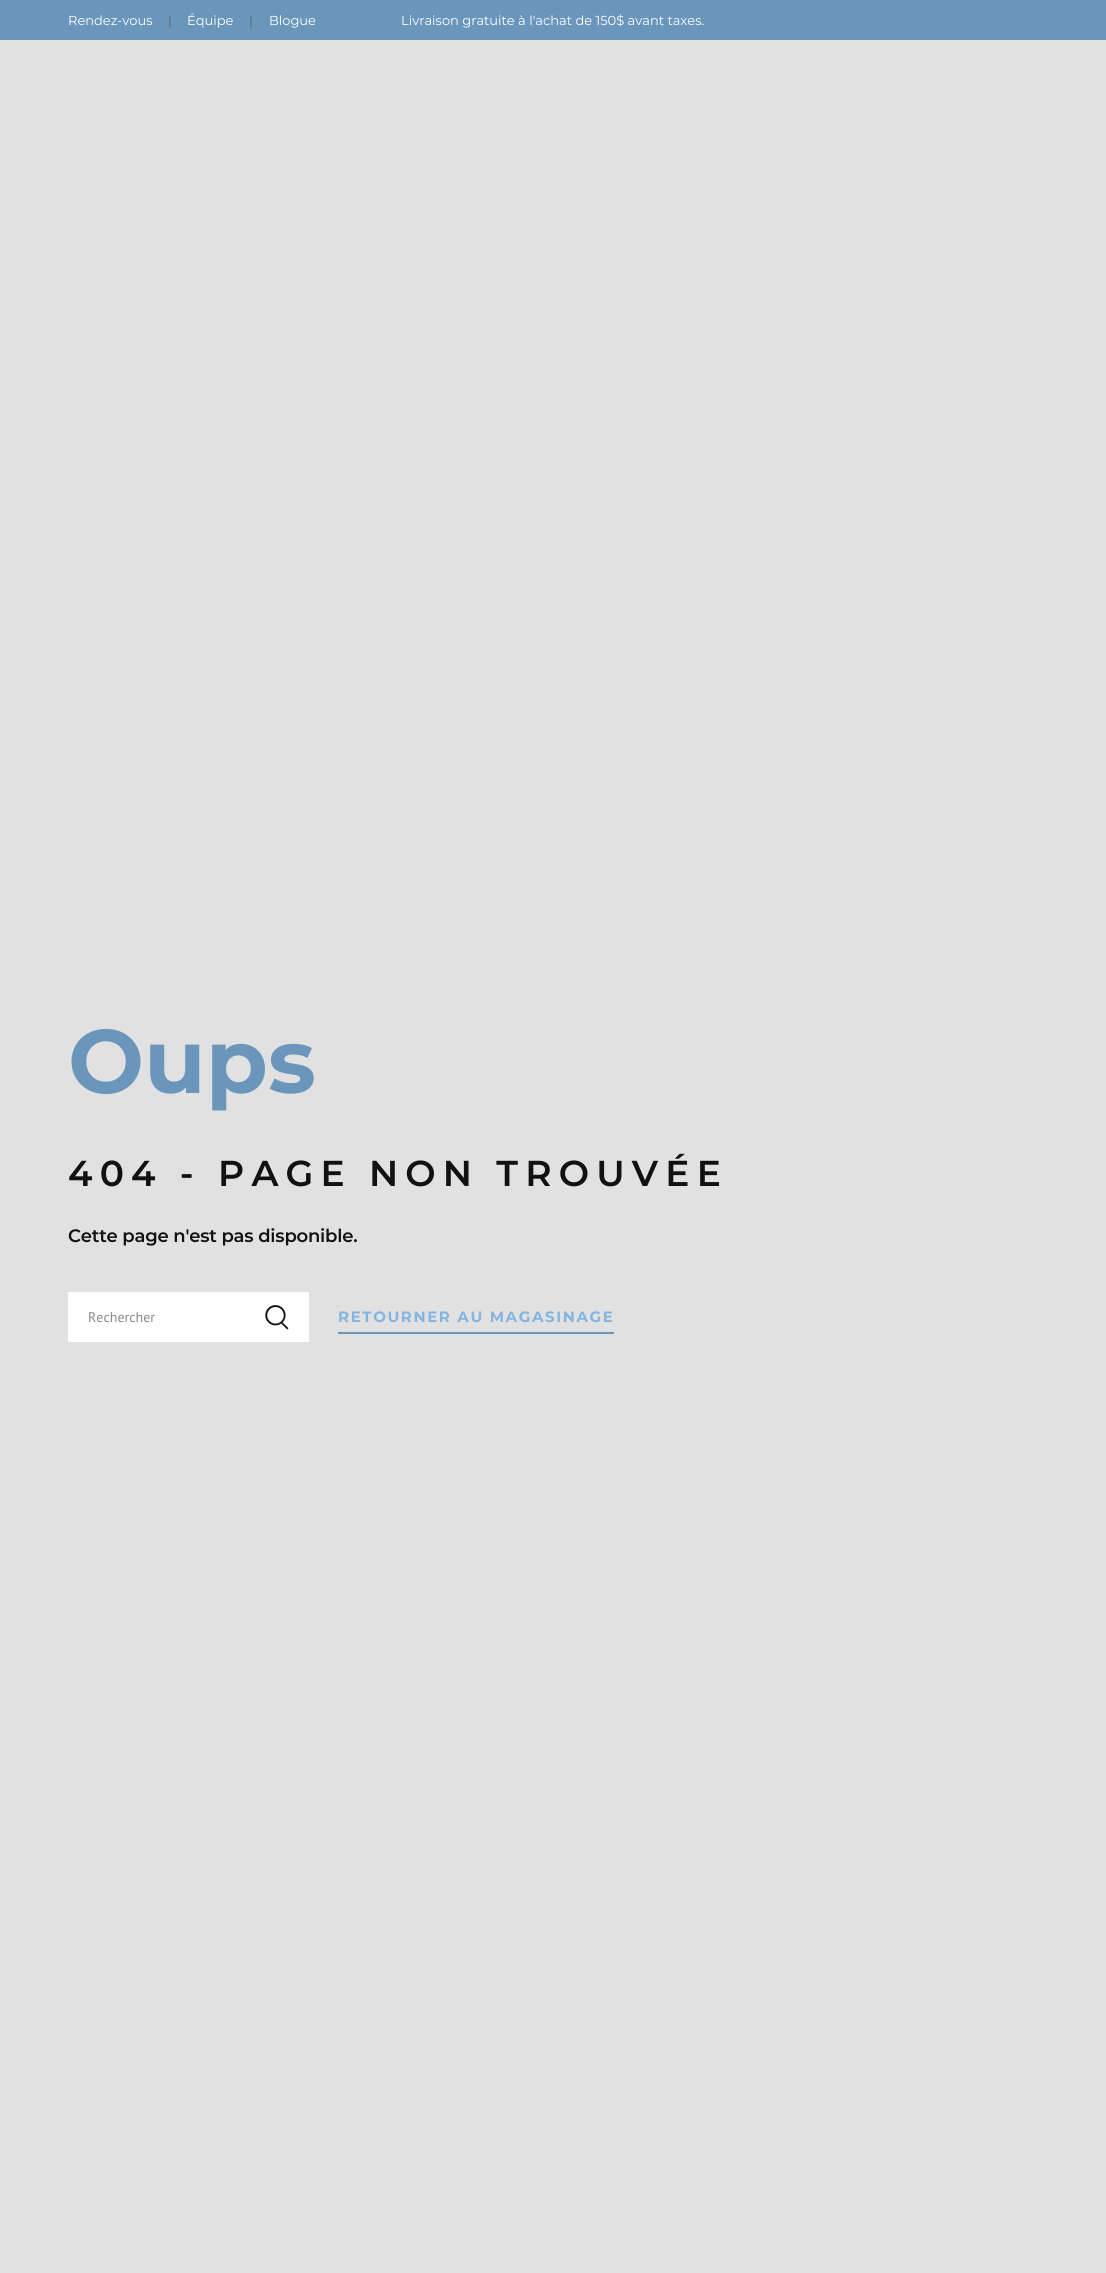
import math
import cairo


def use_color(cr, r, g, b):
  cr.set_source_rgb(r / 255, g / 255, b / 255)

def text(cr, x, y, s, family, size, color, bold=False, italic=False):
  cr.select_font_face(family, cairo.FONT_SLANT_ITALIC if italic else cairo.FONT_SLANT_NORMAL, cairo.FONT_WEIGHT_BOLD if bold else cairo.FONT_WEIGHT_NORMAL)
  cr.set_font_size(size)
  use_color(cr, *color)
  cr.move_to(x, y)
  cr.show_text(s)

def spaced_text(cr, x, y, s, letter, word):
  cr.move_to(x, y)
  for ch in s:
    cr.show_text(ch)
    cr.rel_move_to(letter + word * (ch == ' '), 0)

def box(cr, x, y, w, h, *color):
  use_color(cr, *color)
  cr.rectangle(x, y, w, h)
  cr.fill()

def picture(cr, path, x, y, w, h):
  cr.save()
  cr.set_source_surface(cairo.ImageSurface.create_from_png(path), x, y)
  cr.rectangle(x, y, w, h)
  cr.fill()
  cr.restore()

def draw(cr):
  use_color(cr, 225, 225, 225)
  cr.paint()
  box(cr, 0, 0, 1106, 40, 107, 150, 188)
  box(cr, 68, 1292, 241, 50, 255, 255, 255)
  picture(cr, "img_01.png", 265, 1305, 24, 25)
  box(cr, 338, 1332, 276, 2, 107, 150, 188)
  text(cr, 68, 25, "Rendez-vous", "Montserrat", 13, (255, 255, 255))
  text(cr, 168, 25, "|", "Montserrat", 13, (91, 91, 91))
  text(cr, 187, 25, "Équipe", "Montserrat", 13, (255, 255, 255))
  text(cr, 249, 25, "|", "Montserrat", 13, (91, 91, 91))
  text(cr, 269, 25, "Blogue", "Montserrat", 13, (255, 255, 255))
  text(cr, 401, 25, "Livraison gratuite à l'achat de 150$ avant taxes.", "Montserrat", 13, (255, 255, 255))
  text(cr, 68, 1093, "Oups", "Montserrat", 90, (107, 150, 188), bold=True)
  cr.select_font_face("Montserrat SemiBold")
  cr.set_font_size(36)
  use_color(cr, 17, 17, 17)
  spaced_text(cr, 68, 1186, "404 - PAGE NON TROUVÉE", 7.2, 0)
  cr.set_font_size(18)
  spaced_text(cr, 68, 1242, "Cette page n'est pas disponible.", -0.2, 0)
  text(cr, 88, 1322, "Rechercher", "PT Sans", 14, (136, 136, 136))
  cr.select_font_face("Montserrat", cairo.FONT_SLANT_NORMAL, cairo.FONT_WEIGHT_BOLD)
  cr.set_font_size(15)
  use_color(cr, 132, 181, 223)
  spaced_text(cr, 338, 1322, "RETOURNER AU MAGASINAGE", 1.6, 0)


surface = cairo.ImageSurface(cairo.FORMAT_RGB24, 1106, 2273)
cr = cairo.Context(surface)
options = cairo.FontOptions()
options.set_hint_metrics(cairo.HINT_METRICS_OFF)
options.set_hint_style(cairo.HINT_STYLE_NONE)
cr.set_font_options(options)
cr.set_miter_limit(4)
draw(cr)
surface.write_to_png("out.png")
